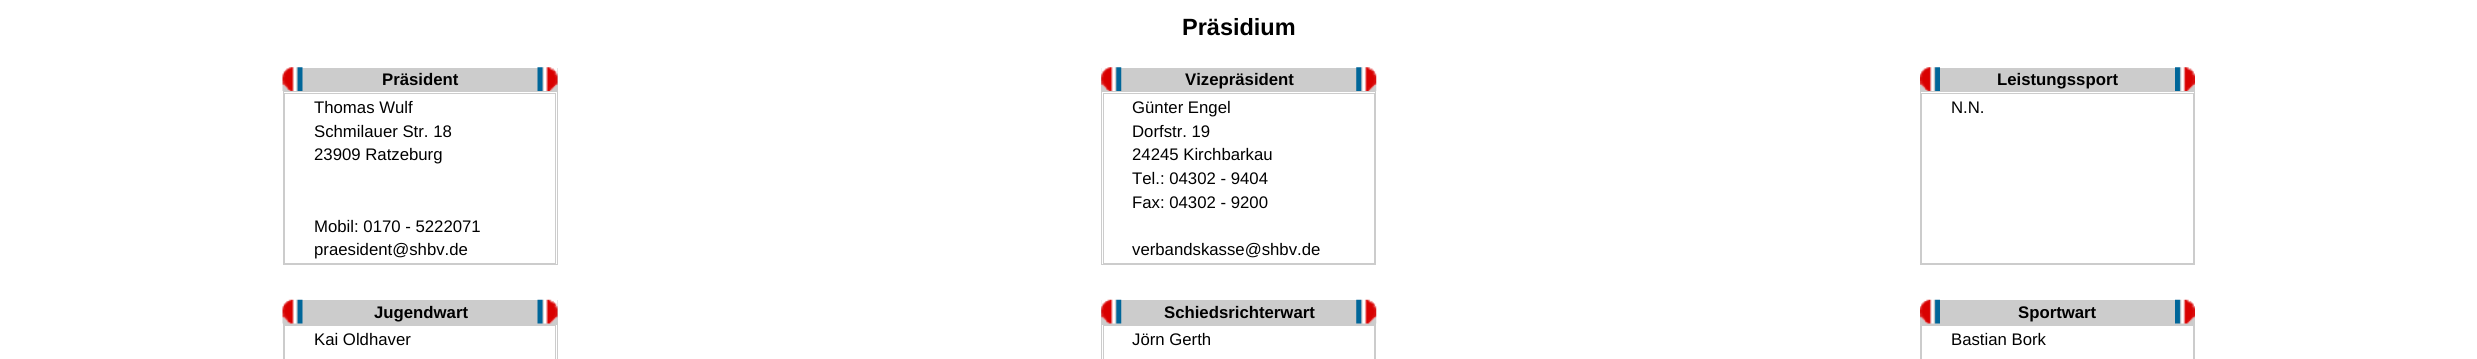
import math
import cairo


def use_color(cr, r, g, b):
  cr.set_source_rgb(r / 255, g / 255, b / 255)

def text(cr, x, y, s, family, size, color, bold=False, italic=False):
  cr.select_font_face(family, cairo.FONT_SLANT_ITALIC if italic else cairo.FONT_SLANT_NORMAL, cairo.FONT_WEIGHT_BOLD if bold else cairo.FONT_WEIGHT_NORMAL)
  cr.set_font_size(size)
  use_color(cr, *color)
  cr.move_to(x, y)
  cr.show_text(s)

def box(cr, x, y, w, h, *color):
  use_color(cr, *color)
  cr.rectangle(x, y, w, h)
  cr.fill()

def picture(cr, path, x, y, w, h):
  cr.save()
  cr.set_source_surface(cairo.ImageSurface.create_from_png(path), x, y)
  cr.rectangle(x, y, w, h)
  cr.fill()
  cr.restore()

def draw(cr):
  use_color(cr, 255, 255, 255)
  cr.paint()
  box(cr, 302, 68, 256, 23, 204, 204, 204)
  picture(cr, "img_01.png", 282, 67, 21, 24)
  picture(cr, "img_02.png", 537, 67, 21, 24)
  cr.rectangle(283.5, 91.5, 274, 173)
  cr.set_line_width(1)
  cr.stroke()
  cr.rectangle(284.5, 93.5, 271, 170)
  cr.stroke()
  box(cr, 1101, 68, 256, 23, 204, 204, 204)
  picture(cr, "img_03.png", 1101, 67, 21, 24)
  picture(cr, "img_04.png", 1356, 67, 21, 24)
  cr.rectangle(1101.5, 91.5, 274, 173)
  cr.stroke()
  cr.rectangle(1103.5, 93.5, 271, 170)
  cr.stroke()
  box(cr, 1940, 68, 235, 23, 204, 204, 204)
  picture(cr, "img_05.png", 1920, 67, 20, 24)
  picture(cr, "img_06.png", 2175, 67, 20, 24)
  cr.rectangle(1920.5, 91.5, 274, 173)
  cr.stroke()
  cr.rectangle(1921.5, 93.5, 272, 170)
  cr.stroke()
  box(cr, 283, 300, 275, 24, 204, 204, 204)
  picture(cr, "img_07.png", 282, 299, 21, 25)
  picture(cr, "img_08.png", 537, 299, 21, 25)
  cr.rectangle(283.5, 324.5, 274, 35)
  cr.stroke()
  cr.rectangle(284.5, 325.5, 271, 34)
  cr.stroke()
  box(cr, 1101, 300, 275, 24, 204, 204, 204)
  picture(cr, "img_09.png", 1101, 299, 21, 25)
  picture(cr, "img_10.png", 1356, 299, 21, 25)
  cr.rectangle(1101.5, 324.5, 274, 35)
  cr.stroke()
  cr.rectangle(1103.5, 325.5, 271, 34)
  cr.stroke()
  box(cr, 1920, 300, 275, 24, 204, 204, 204)
  picture(cr, "img_11.png", 1920, 299, 20, 25)
  picture(cr, "img_12.png", 2175, 299, 20, 25)
  cr.rectangle(1920.5, 324.5, 274, 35)
  cr.stroke()
  cr.rectangle(1921.5, 325.5, 272, 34)
  cr.stroke()
  text(cr, 1182, 35, "Präsidium", "Liberation Sans", 23.5, (0, 0, 0), bold=True)
  text(cr, 382, 85, "Präsident", "Liberation Sans", 16.75, (0, 0, 0), bold=True)
  text(cr, 314, 113, "Thomas Wulf", "Liberation Sans", 16.75, (0, 0, 0))
  text(cr, 314, 137, "Schmilauer Str. 18", "Liberation Sans", 16.75, (0, 0, 0))
  text(cr, 314, 160, "23909 Ratzeburg", "Liberation Sans", 16.75, (0, 0, 0))
  text(cr, 314, 232, "Mobil: 0170 - 5222071", "Liberation Sans", 16.75, (0, 0, 0))
  text(cr, 314, 255, "praesident@shbv.de", "Liberation Sans", 16.75, (0, 0, 0))
  text(cr, 1185, 85, "Vizepräsident", "Liberation Sans", 16.75, (0, 0, 0), bold=True)
  text(cr, 1132, 113, "Günter Engel", "Liberation Sans", 16.75, (0, 0, 0))
  text(cr, 1132, 137, "Dorfstr. 19", "Liberation Sans", 16.75, (0, 0, 0))
  text(cr, 1132, 160, "24245 Kirchbarkau", "Liberation Sans", 16.75, (0, 0, 0))
  text(cr, 1132, 184, "Tel.: 04302 - 9404", "Liberation Sans", 16.75, (0, 0, 0))
  text(cr, 1132, 208, "Fax: 04302 - 9200", "Liberation Sans", 16.75, (0, 0, 0))
  text(cr, 1132, 255, "verbandskasse@shbv.de", "Liberation Sans", 16.75, (0, 0, 0))
  text(cr, 1997, 85, "Leistungssport", "Liberation Sans", 16.75, (0, 0, 0), bold=True)
  text(cr, 1951, 113, "N.N.", "Liberation Sans", 16.75, (0, 0, 0))
  text(cr, 374, 318, "Jugendwart", "Liberation Sans", 16.75, (0, 0, 0), bold=True)
  text(cr, 314, 345, "Kai Oldhaver", "Liberation Sans", 16.75, (0, 0, 0))
  text(cr, 1164, 318, "Schiedsrichterwart", "Liberation Sans", 16.75, (0, 0, 0), bold=True)
  text(cr, 1132, 345, "Jörn Gerth", "Liberation Sans", 16.75, (0, 0, 0))
  text(cr, 2018, 318, "Sportwart", "Liberation Sans", 16.75, (0, 0, 0), bold=True)
  text(cr, 1951, 345, "Bastian Bork", "Liberation Sans", 16.75, (0, 0, 0))


surface = cairo.ImageSurface(cairo.FORMAT_RGB24, 2477, 359)
cr = cairo.Context(surface)
options = cairo.FontOptions()
options.set_hint_metrics(cairo.HINT_METRICS_OFF)
options.set_hint_style(cairo.HINT_STYLE_NONE)
cr.set_font_options(options)
cr.set_miter_limit(4)
draw(cr)
surface.write_to_png("out.png")
